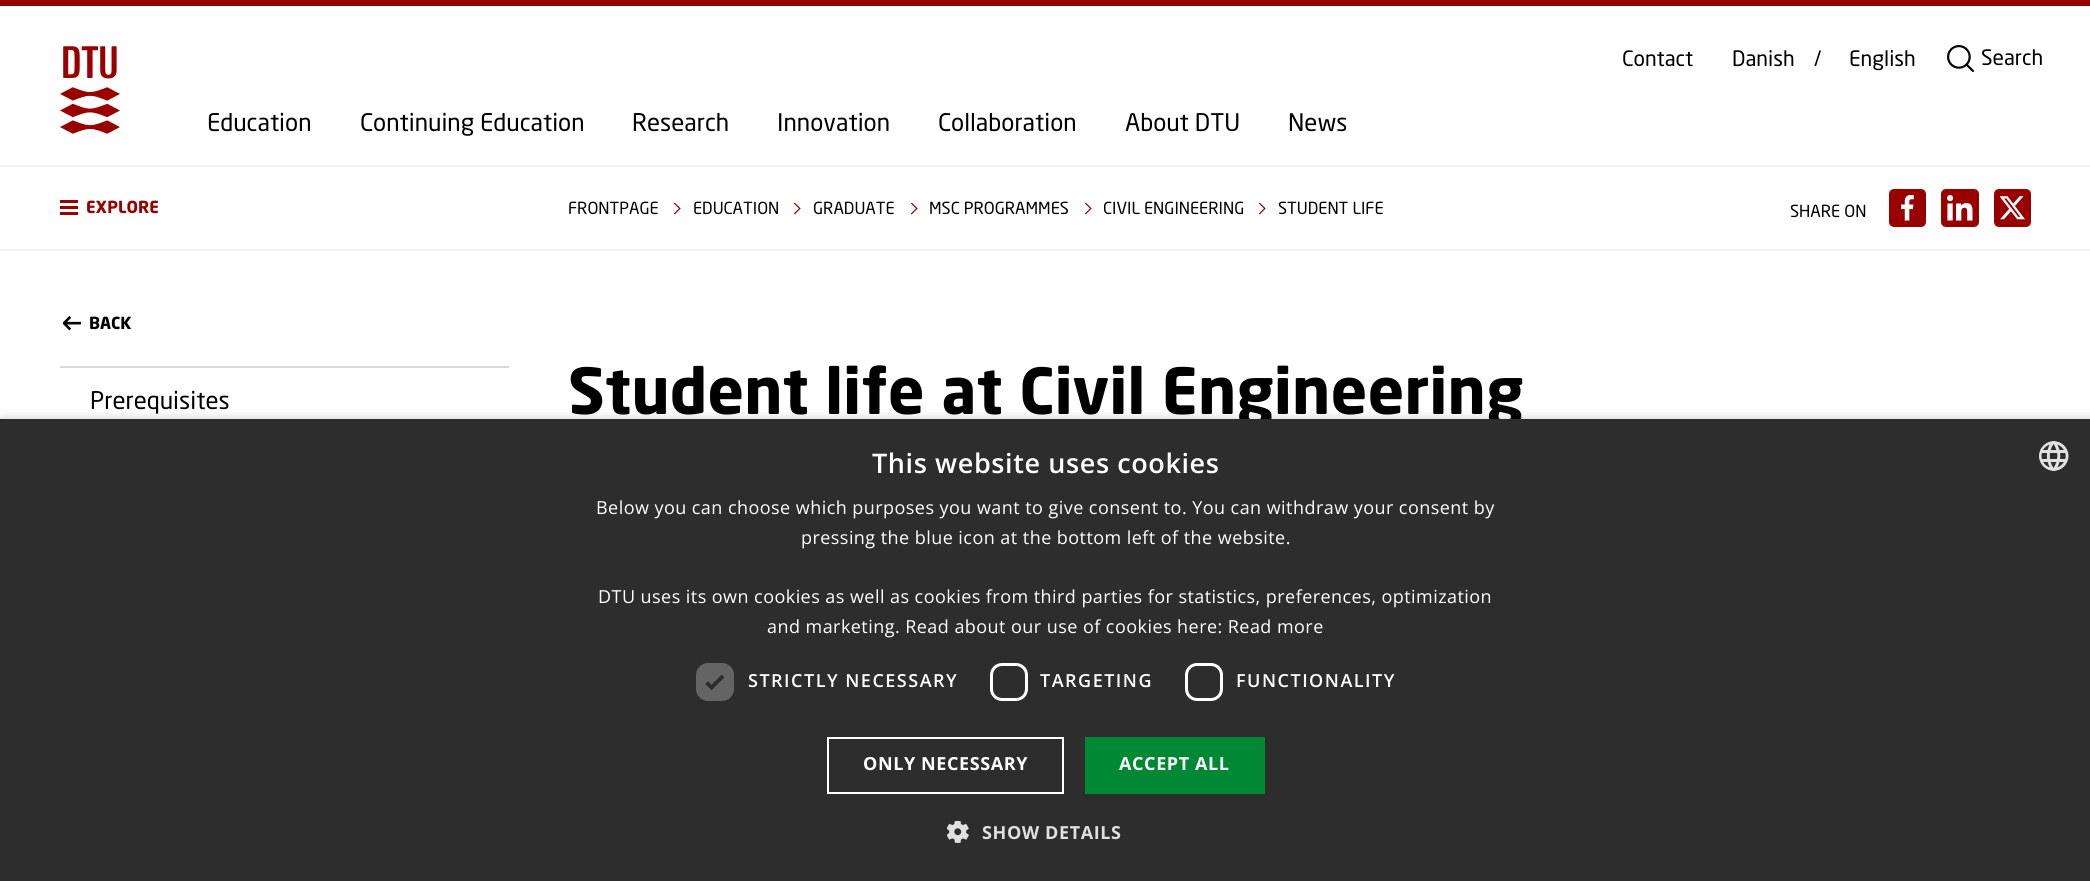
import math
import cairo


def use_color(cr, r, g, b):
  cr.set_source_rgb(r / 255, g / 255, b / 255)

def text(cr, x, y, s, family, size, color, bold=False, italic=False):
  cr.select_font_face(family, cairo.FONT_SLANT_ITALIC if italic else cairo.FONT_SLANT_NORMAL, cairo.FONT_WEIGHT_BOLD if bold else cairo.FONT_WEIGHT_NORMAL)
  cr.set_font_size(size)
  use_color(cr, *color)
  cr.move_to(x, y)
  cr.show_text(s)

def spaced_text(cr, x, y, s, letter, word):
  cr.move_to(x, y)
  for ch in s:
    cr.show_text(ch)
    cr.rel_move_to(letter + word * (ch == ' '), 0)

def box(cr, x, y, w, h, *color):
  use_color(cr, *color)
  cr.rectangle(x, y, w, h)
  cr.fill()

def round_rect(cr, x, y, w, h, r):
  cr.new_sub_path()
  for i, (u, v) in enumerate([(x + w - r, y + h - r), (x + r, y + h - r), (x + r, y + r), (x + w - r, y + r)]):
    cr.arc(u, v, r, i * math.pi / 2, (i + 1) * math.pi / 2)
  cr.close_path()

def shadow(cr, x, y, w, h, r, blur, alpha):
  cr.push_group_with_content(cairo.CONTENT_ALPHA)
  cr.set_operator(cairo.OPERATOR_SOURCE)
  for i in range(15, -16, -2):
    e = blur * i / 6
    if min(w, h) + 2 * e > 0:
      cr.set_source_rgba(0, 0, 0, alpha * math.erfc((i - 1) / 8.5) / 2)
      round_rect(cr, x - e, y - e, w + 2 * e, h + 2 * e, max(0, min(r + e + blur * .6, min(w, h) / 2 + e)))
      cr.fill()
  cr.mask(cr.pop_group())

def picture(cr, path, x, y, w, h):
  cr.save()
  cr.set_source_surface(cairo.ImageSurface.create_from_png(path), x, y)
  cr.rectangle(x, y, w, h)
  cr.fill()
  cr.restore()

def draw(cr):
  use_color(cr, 255, 255, 255)
  cr.paint()
  box(cr, 0, 0, 2090, 6, 153, 0, 0)
  box(cr, 0, 165, 2090, 2, 241, 241, 241)
  picture(cr, "img_01.png", 60, 46, 60, 88)
  picture(cr, "img_02.png", 1947, 45, 27, 27)
  box(cr, 0, 249, 2090, 2, 241, 241, 241)
  box(cr, 60, 200, 18, 3, 153, 0, 0)
  box(cr, 60, 206, 18, 3, 153, 0, 0)
  box(cr, 60, 212, 18, 3, 153, 0, 0)
  picture(cr, "img_03.png", 674, 203, 7, 12)
  picture(cr, "img_03.png", 794, 203, 7, 12)
  picture(cr, "img_03.png", 911, 203, 7, 12)
  picture(cr, "img_03.png", 1085, 203, 7, 12)
  picture(cr, "img_03.png", 1259, 203, 7, 12)
  round_rect(cr, 1889, 189, 37, 38, 5)
  cr.fill()
  picture(cr, "img_04.png", 1901, 195, 13, 26)
  round_rect(cr, 1941, 189, 38, 38, 5)
  cr.fill()
  picture(cr, "img_05.png", 1947, 195, 26, 26)
  round_rect(cr, 1994, 189, 37, 38, 5)
  cr.fill()
  picture(cr, "img_06.png", 2000, 196, 25, 24)
  picture(cr, "img_07.png", 63, 316, 18, 15)
  box(cr, 60, 366, 449, 2, 218, 218, 218)
  use_color(cr, 0, 0, 0)
  shadow(cr, 2, 422, 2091, 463, 0, 6, 0.35)
  text(cr, 1622, 66, "Contact", "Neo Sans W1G", 21, (0, 0, 0))
  text(cr, 1732, 66, "Danish", "Neo Sans W1G", 21, (0, 0, 0))
  text(cr, 1814, 66, "/", "Neo Sans W1G", 21, (0, 0, 0))
  text(cr, 1849, 66, "English", "Neo Sans W1G", 21, (0, 0, 0))
  text(cr, 1981, 65, "Search", "Neo Sans W1G", 21, (0, 0, 0))
  text(cr, 207, 131, "Education", "Neo Sans W1G", 24, (0, 0, 0))
  text(cr, 360, 131, "Continuing Education", "Neo Sans W1G", 24, (0, 0, 0))
  text(cr, 632, 131, "Research", "Neo Sans W1G", 24, (0, 0, 0))
  text(cr, 777, 131, "Innovation", "Neo Sans W1G", 24, (0, 0, 0))
  text(cr, 938, 131, "Collaboration", "Neo Sans W1G", 24, (0, 0, 0))
  text(cr, 1125, 131, "About DTU", "Neo Sans W1G", 24, (0, 0, 0))
  text(cr, 1288, 131, "News", "Neo Sans W1G", 24, (0, 0, 0))
  text(cr, 86, 213, "EXPLORE", "Neo Sans W1G", 16.5, (153, 0, 0), bold=True)
  text(cr, 568, 214, "FRONTPAGE", "Neo Sans W1G", 16.5, (0, 0, 0))
  text(cr, 693, 214, "EDUCATION", "Neo Sans W1G", 16.5, (0, 0, 0))
  text(cr, 813, 214, "GRADUATE", "Neo Sans W1G", 16.5, (0, 0, 0))
  text(cr, 929, 214, "MSC PROGRAMMES", "Neo Sans W1G", 16.5, (0, 0, 0))
  text(cr, 1103, 214, "CIVIL ENGINEERING", "Neo Sans W1G", 16.5, (0, 0, 0))
  text(cr, 1278, 214, "STUDENT LIFE", "Neo Sans W1G", 16.5, (0, 0, 0))
  text(cr, 1790, 217, "SHARE ON", "Neo Sans W1G", 16.5, (0, 0, 0))
  text(cr, 89, 329, "BACK", "Neo Sans W1G", 16.5, (0, 0, 0), bold=True)
  text(cr, 90, 409, "Prerequisites", "Neo Sans W1G", 24, (0, 0, 0))
  text(cr, 568, 414, "Student life at Civil Engineering", "Neo Sans W1G", 62.75, (0, 0, 0), bold=True)
  box(cr, 0, 419, 2090, 462, 45, 45, 45)
  cr.select_font_face("Open Sans SemiBold")
  cr.set_font_size(27)
  use_color(cr, 255, 255, 255)
  spaced_text(cr, 872, 473, "This website uses cookies", 0.6, 0)
  picture(cr, "img_08.png", 2039, 441, 30, 30)
  cr.select_font_face("Open Sans")
  cr.set_font_size(18)
  spaced_text(cr, 596, 514, "Below you can choose which purposes you want to give consent to. You can withdraw your consent by", 0.45, 0)
  spaced_text(cr, 801, 544, "pressing the blue icon at the bottom left of the website.", 0.45, 0)
  spaced_text(cr, 598, 603, "DTU uses its own cookies as well as cookies from third parties for statistics, preferences, optimization", 0.45, 0)
  spaced_text(cr, 767, 633, "and marketing. Read about our use of cookies here: Read more", 0.45, 0)
  use_color(cr, 100, 100, 100)
  round_rect(cr, 696, 663, 38, 38, 12)
  cr.fill()
  cr.new_path()
  cr.move_to(706.5, 682.5)
  cr.line_to(711.5, 687.5)
  cr.line_to(723, 676)
  use_color(cr, 45, 45, 45)
  cr.set_line_width(3.9)
  cr.stroke()
  cr.select_font_face("Open Sans SemiBold")
  use_color(cr, 255, 255, 255)
  spaced_text(cr, 748, 687, "STRICTLY NECESSARY", 1.5, 0)
  round_rect(cr, 991.5, 664.5, 35, 35, 10.5)
  cr.set_line_width(3)
  cr.stroke()
  spaced_text(cr, 1040, 687, "TARGETING", 1.5, 0)
  round_rect(cr, 1186.5, 664.5, 35, 35, 10.5)
  cr.stroke()
  spaced_text(cr, 1236, 687, "FUNCTIONALITY", 1.5, 0)
  cr.rectangle(828, 738, 235, 55)
  cr.set_line_width(2)
  cr.stroke()
  cr.select_font_face("Open Sans", cairo.FONT_SLANT_NORMAL, cairo.FONT_WEIGHT_BOLD)
  spaced_text(cr, 863, 770, "ONLY NECESSARY", 0.6, 0)
  box(cr, 1085, 737, 180, 57, 0, 136, 53)
  use_color(cr, 255, 255, 255)
  spaced_text(cr, 1119, 770, "ACCEPT ALL", 0.6, 0)
  picture(cr, "img_09.png", 947, 821, 22, 22)
  use_color(cr, 224, 224, 224)
  spaced_text(cr, 982, 839, "SHOW DETAILS", 0.6, 0)


surface = cairo.ImageSurface(cairo.FORMAT_RGB24, 2090, 881)
cr = cairo.Context(surface)
options = cairo.FontOptions()
options.set_hint_metrics(cairo.HINT_METRICS_OFF)
options.set_hint_style(cairo.HINT_STYLE_NONE)
cr.set_font_options(options)
cr.set_miter_limit(4)
draw(cr)
surface.write_to_png("out.png")
